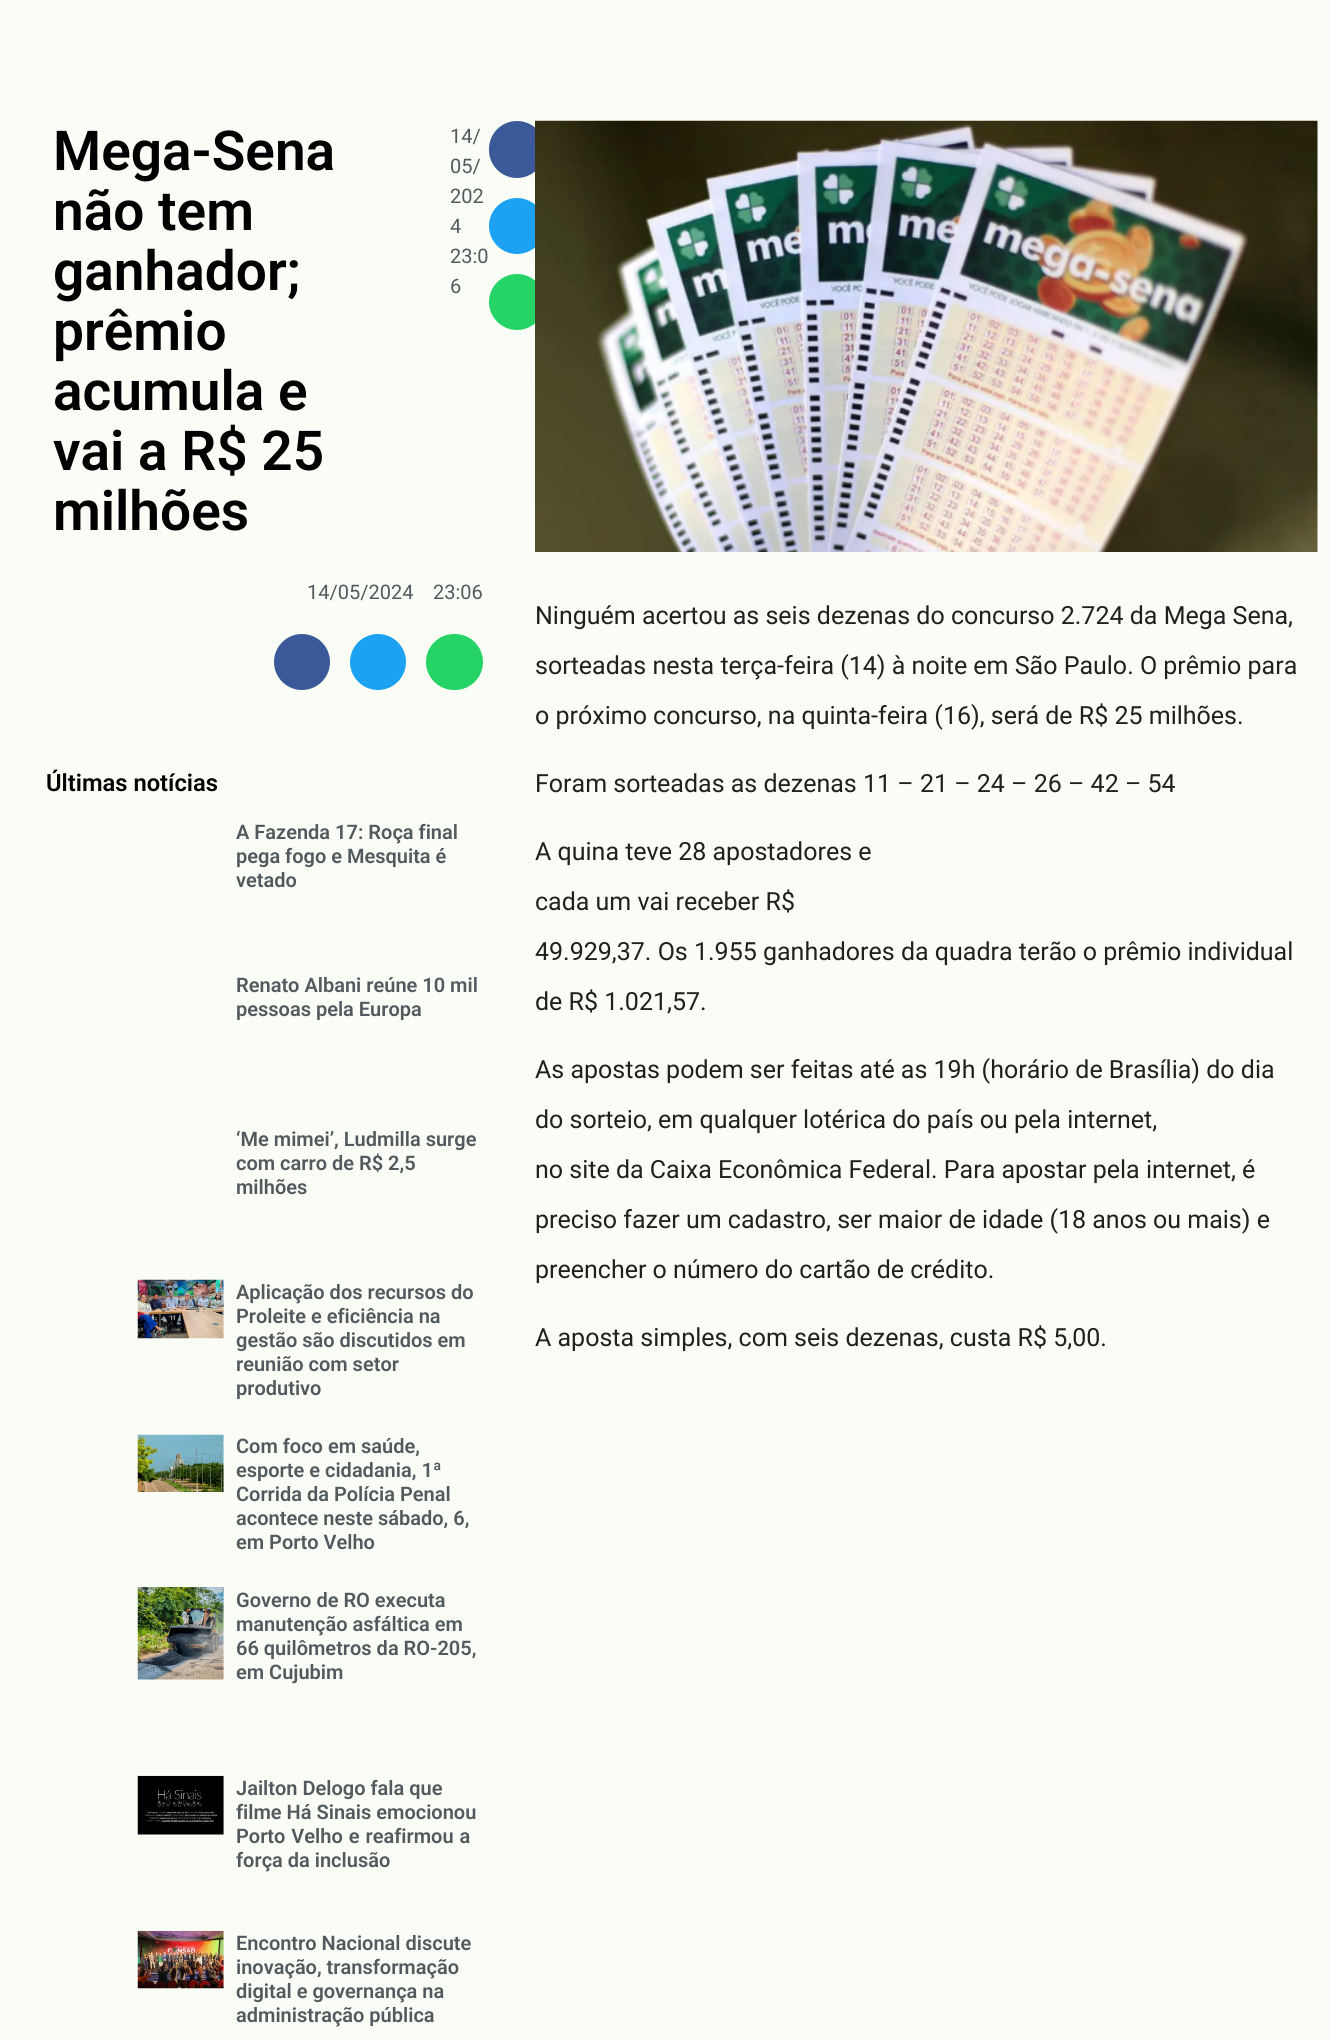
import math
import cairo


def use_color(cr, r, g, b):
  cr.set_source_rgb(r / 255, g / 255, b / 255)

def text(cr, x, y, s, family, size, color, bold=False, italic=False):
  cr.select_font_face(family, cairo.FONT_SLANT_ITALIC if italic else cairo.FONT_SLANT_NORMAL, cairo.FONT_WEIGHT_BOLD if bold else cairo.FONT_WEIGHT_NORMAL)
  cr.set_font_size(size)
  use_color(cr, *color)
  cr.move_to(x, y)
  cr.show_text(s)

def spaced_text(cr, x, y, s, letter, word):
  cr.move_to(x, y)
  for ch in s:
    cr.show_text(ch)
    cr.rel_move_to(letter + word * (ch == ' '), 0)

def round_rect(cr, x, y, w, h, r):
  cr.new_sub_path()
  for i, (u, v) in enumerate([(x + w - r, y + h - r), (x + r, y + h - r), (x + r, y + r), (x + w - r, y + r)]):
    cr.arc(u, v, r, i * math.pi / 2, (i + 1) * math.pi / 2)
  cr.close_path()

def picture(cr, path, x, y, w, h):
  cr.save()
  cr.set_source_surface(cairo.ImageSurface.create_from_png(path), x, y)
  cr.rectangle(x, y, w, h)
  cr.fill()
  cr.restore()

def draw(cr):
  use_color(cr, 250, 253, 245)
  cr.paint()
  use_color(cr, 59, 89, 152)
  round_rect(cr, 489, 121, 56, 57, 28)
  cr.fill()
  use_color(cr, 29, 161, 242)
  cr.arc(517, 226, 28, 0, 2 * math.pi)
  cr.fill()
  use_color(cr, 37, 211, 102)
  cr.arc(517, 302, 28, 0, 2 * math.pi)
  cr.fill()
  picture(cr, "img_01.png", 535, 120, 783, 432)
  use_color(cr, 59, 89, 152)
  cr.arc(302, 662, 28, 0, 2 * math.pi)
  cr.fill()
  use_color(cr, 29, 161, 242)
  cr.arc(378, 662, 28, 0, 2 * math.pi)
  cr.fill()
  use_color(cr, 37, 211, 102)
  round_rect(cr, 426, 634, 57, 56, 28)
  cr.fill()
  picture(cr, "img_02.png", 137, 1279, 87, 60)
  picture(cr, "img_03.png", 137, 1434, 87, 58)
  picture(cr, "img_04.png", 137, 1587, 87, 93)
  picture(cr, "img_05.png", 137, 1775, 87, 60)
  picture(cr, "img_06.png", 137, 1930, 87, 59)
  text(cr, 53, 170, "Mega-Sena", "Roboto SemiBold", 55, (0, 0, 0))
  text(cr, 53, 230, "não tem", "Roboto SemiBold", 55, (0, 0, 0))
  text(cr, 53, 290, "ganhador;", "Roboto SemiBold", 55, (0, 0, 0))
  text(cr, 53, 350, "prêmio", "Roboto SemiBold", 55, (0, 0, 0))
  text(cr, 53, 410, "acumula e", "Roboto SemiBold", 55, (0, 0, 0))
  text(cr, 53, 470, "vai a R$ 25", "Roboto SemiBold", 55, (0, 0, 0))
  text(cr, 53, 530, "milhões", "Roboto SemiBold", 55, (0, 0, 0))
  text(cr, 450, 143, "14/", "Roboto", 20, (84, 89, 95))
  text(cr, 450, 173, "05/", "Roboto", 20, (84, 89, 95))
  text(cr, 450, 203, "202", "Roboto", 20, (84, 89, 95))
  text(cr, 450, 233, "4", "Roboto", 20, (84, 89, 95))
  text(cr, 450, 263, "23:0", "Roboto", 20, (84, 89, 95))
  text(cr, 450, 293, "6", "Roboto", 20, (84, 89, 95))
  text(cr, 307, 599, "14/05/2024", "Roboto", 20, (84, 89, 95))
  text(cr, 433, 599, "23:06", "Roboto", 20, (84, 89, 95))
  text(cr, 46, 791, "Últimas notícias", "Roboto SemiBold", 23.75, (0, 0, 0))
  text(cr, 236, 839, "A Fazenda 17: Roça final", "Roboto SemiBold", 20, (84, 89, 95))
  text(cr, 236, 863, "pega fogo e Mesquita é", "Roboto SemiBold", 20, (84, 89, 95))
  text(cr, 236, 887, "vetado", "Roboto SemiBold", 20, (84, 89, 95))
  text(cr, 236, 992, "Renato Albani reúne 10 mil", "Roboto SemiBold", 20, (84, 89, 95))
  text(cr, 236, 1016, "pessoas pela Europa", "Roboto SemiBold", 20, (84, 89, 95))
  text(cr, 236, 1146, "‘Me mimei’, Ludmilla surge", "Roboto SemiBold", 20, (84, 89, 95))
  text(cr, 236, 1170, "com carro de R$ 2,5", "Roboto SemiBold", 20, (84, 89, 95))
  text(cr, 236, 1194, "milhões", "Roboto SemiBold", 20, (84, 89, 95))
  text(cr, 236, 1299, "Aplicação dos recursos do", "Roboto SemiBold", 20, (84, 89, 95))
  text(cr, 236, 1323, "Proleite e eficiência na", "Roboto SemiBold", 20, (84, 89, 95))
  text(cr, 236, 1347, "gestão são discutidos em", "Roboto SemiBold", 20, (84, 89, 95))
  text(cr, 236, 1371, "reunião com setor", "Roboto SemiBold", 20, (84, 89, 95))
  text(cr, 236, 1395, "produtivo", "Roboto SemiBold", 20, (84, 89, 95))
  text(cr, 236, 1453, "Com foco em saúde,", "Roboto SemiBold", 20, (84, 89, 95))
  text(cr, 236, 1477, "esporte e cidadania, 1ª", "Roboto SemiBold", 20, (84, 89, 95))
  text(cr, 236, 1501, "Corrida da Polícia Penal", "Roboto SemiBold", 20, (84, 89, 95))
  text(cr, 236, 1525, "acontece neste sábado, 6,", "Roboto SemiBold", 20, (84, 89, 95))
  text(cr, 236, 1549, "em Porto Velho", "Roboto SemiBold", 20, (84, 89, 95))
  text(cr, 236, 1607, "Governo de RO executa", "Roboto SemiBold", 20, (84, 89, 95))
  text(cr, 236, 1631, "manutenção asfáltica em", "Roboto SemiBold", 20, (84, 89, 95))
  text(cr, 236, 1655, "66 quilômetros da RO-205,", "Roboto SemiBold", 20, (84, 89, 95))
  text(cr, 236, 1679, "em Cujubim", "Roboto SemiBold", 20, (84, 89, 95))
  text(cr, 236, 1795, "Jailton Delogo fala que", "Roboto SemiBold", 20, (84, 89, 95))
  text(cr, 236, 1819, "filme Há Sinais emocionou", "Roboto SemiBold", 20, (84, 89, 95))
  spaced_text(cr, 236, 1843, "Porto Velho e reafirmou a", 0, 1)
  text(cr, 236, 1867, "força da inclusão", "Roboto SemiBold", 20, (84, 89, 95))
  text(cr, 236, 1950, "Encontro Nacional discute", "Roboto SemiBold", 20, (84, 89, 95))
  text(cr, 236, 1974, "inovação, transformação", "Roboto SemiBold", 20, (84, 89, 95))
  text(cr, 236, 1998, "digital e governança na", "Roboto SemiBold", 20, (84, 89, 95))
  text(cr, 236, 2022, "administração pública", "Roboto SemiBold", 20, (84, 89, 95))
  text(cr, 535, 624, "Ninguém acertou as seis dezenas do concurso 2.724 da Mega Sena,", "Roboto", 25, (32, 32, 32))
  text(cr, 535, 674, "sorteadas nesta terça-feira (14) à noite em São Paulo. O prêmio para", "Roboto", 25, (32, 32, 32))
  text(cr, 535, 724, "o próximo concurso, na quinta-feira (16), será de R$ 25 milhões.", "Roboto", 25, (32, 32, 32))
  text(cr, 535, 792, "Foram sorteadas as dezenas 11 – 21 – 24 – 26 – 42 – 54", "Roboto", 25, (32, 32, 32))
  text(cr, 535, 860, "A quina teve 28 apostadores e", "Roboto", 25, (32, 32, 32))
  text(cr, 535, 910, "cada um vai receber R$", "Roboto", 25, (32, 32, 32))
  text(cr, 535, 960, "49.929,37. Os 1.955 ganhadores da quadra terão o prêmio individual", "Roboto", 25, (32, 32, 32))
  text(cr, 535, 1010, "de R$ 1.021,57.", "Roboto", 25, (32, 32, 32))
  text(cr, 535, 1078, "As apostas podem ser feitas até as 19h (horário de Brasília) do dia", "Roboto", 25, (32, 32, 32))
  text(cr, 535, 1128, "do sorteio, em qualquer lotérica do país ou pela internet,", "Roboto", 25, (32, 32, 32))
  text(cr, 535, 1178, "no site da Caixa Econômica Federal. Para apostar pela internet, é", "Roboto", 25, (32, 32, 32))
  text(cr, 535, 1228, "preciso fazer um cadastro, ser maior de idade (18 anos ou mais) e", "Roboto", 25, (32, 32, 32))
  text(cr, 535, 1278, "preencher o número do cartão de crédito.", "Roboto", 25, (32, 32, 32))
  text(cr, 535, 1346, "A aposta simples, com seis dezenas, custa R$ 5,00.", "Roboto", 25, (32, 32, 32))


surface = cairo.ImageSurface(cairo.FORMAT_RGB24, 1330, 2040)
cr = cairo.Context(surface)
options = cairo.FontOptions()
options.set_hint_metrics(cairo.HINT_METRICS_OFF)
options.set_hint_style(cairo.HINT_STYLE_NONE)
cr.set_font_options(options)
cr.set_miter_limit(4)
draw(cr)
surface.write_to_png("out.png")
